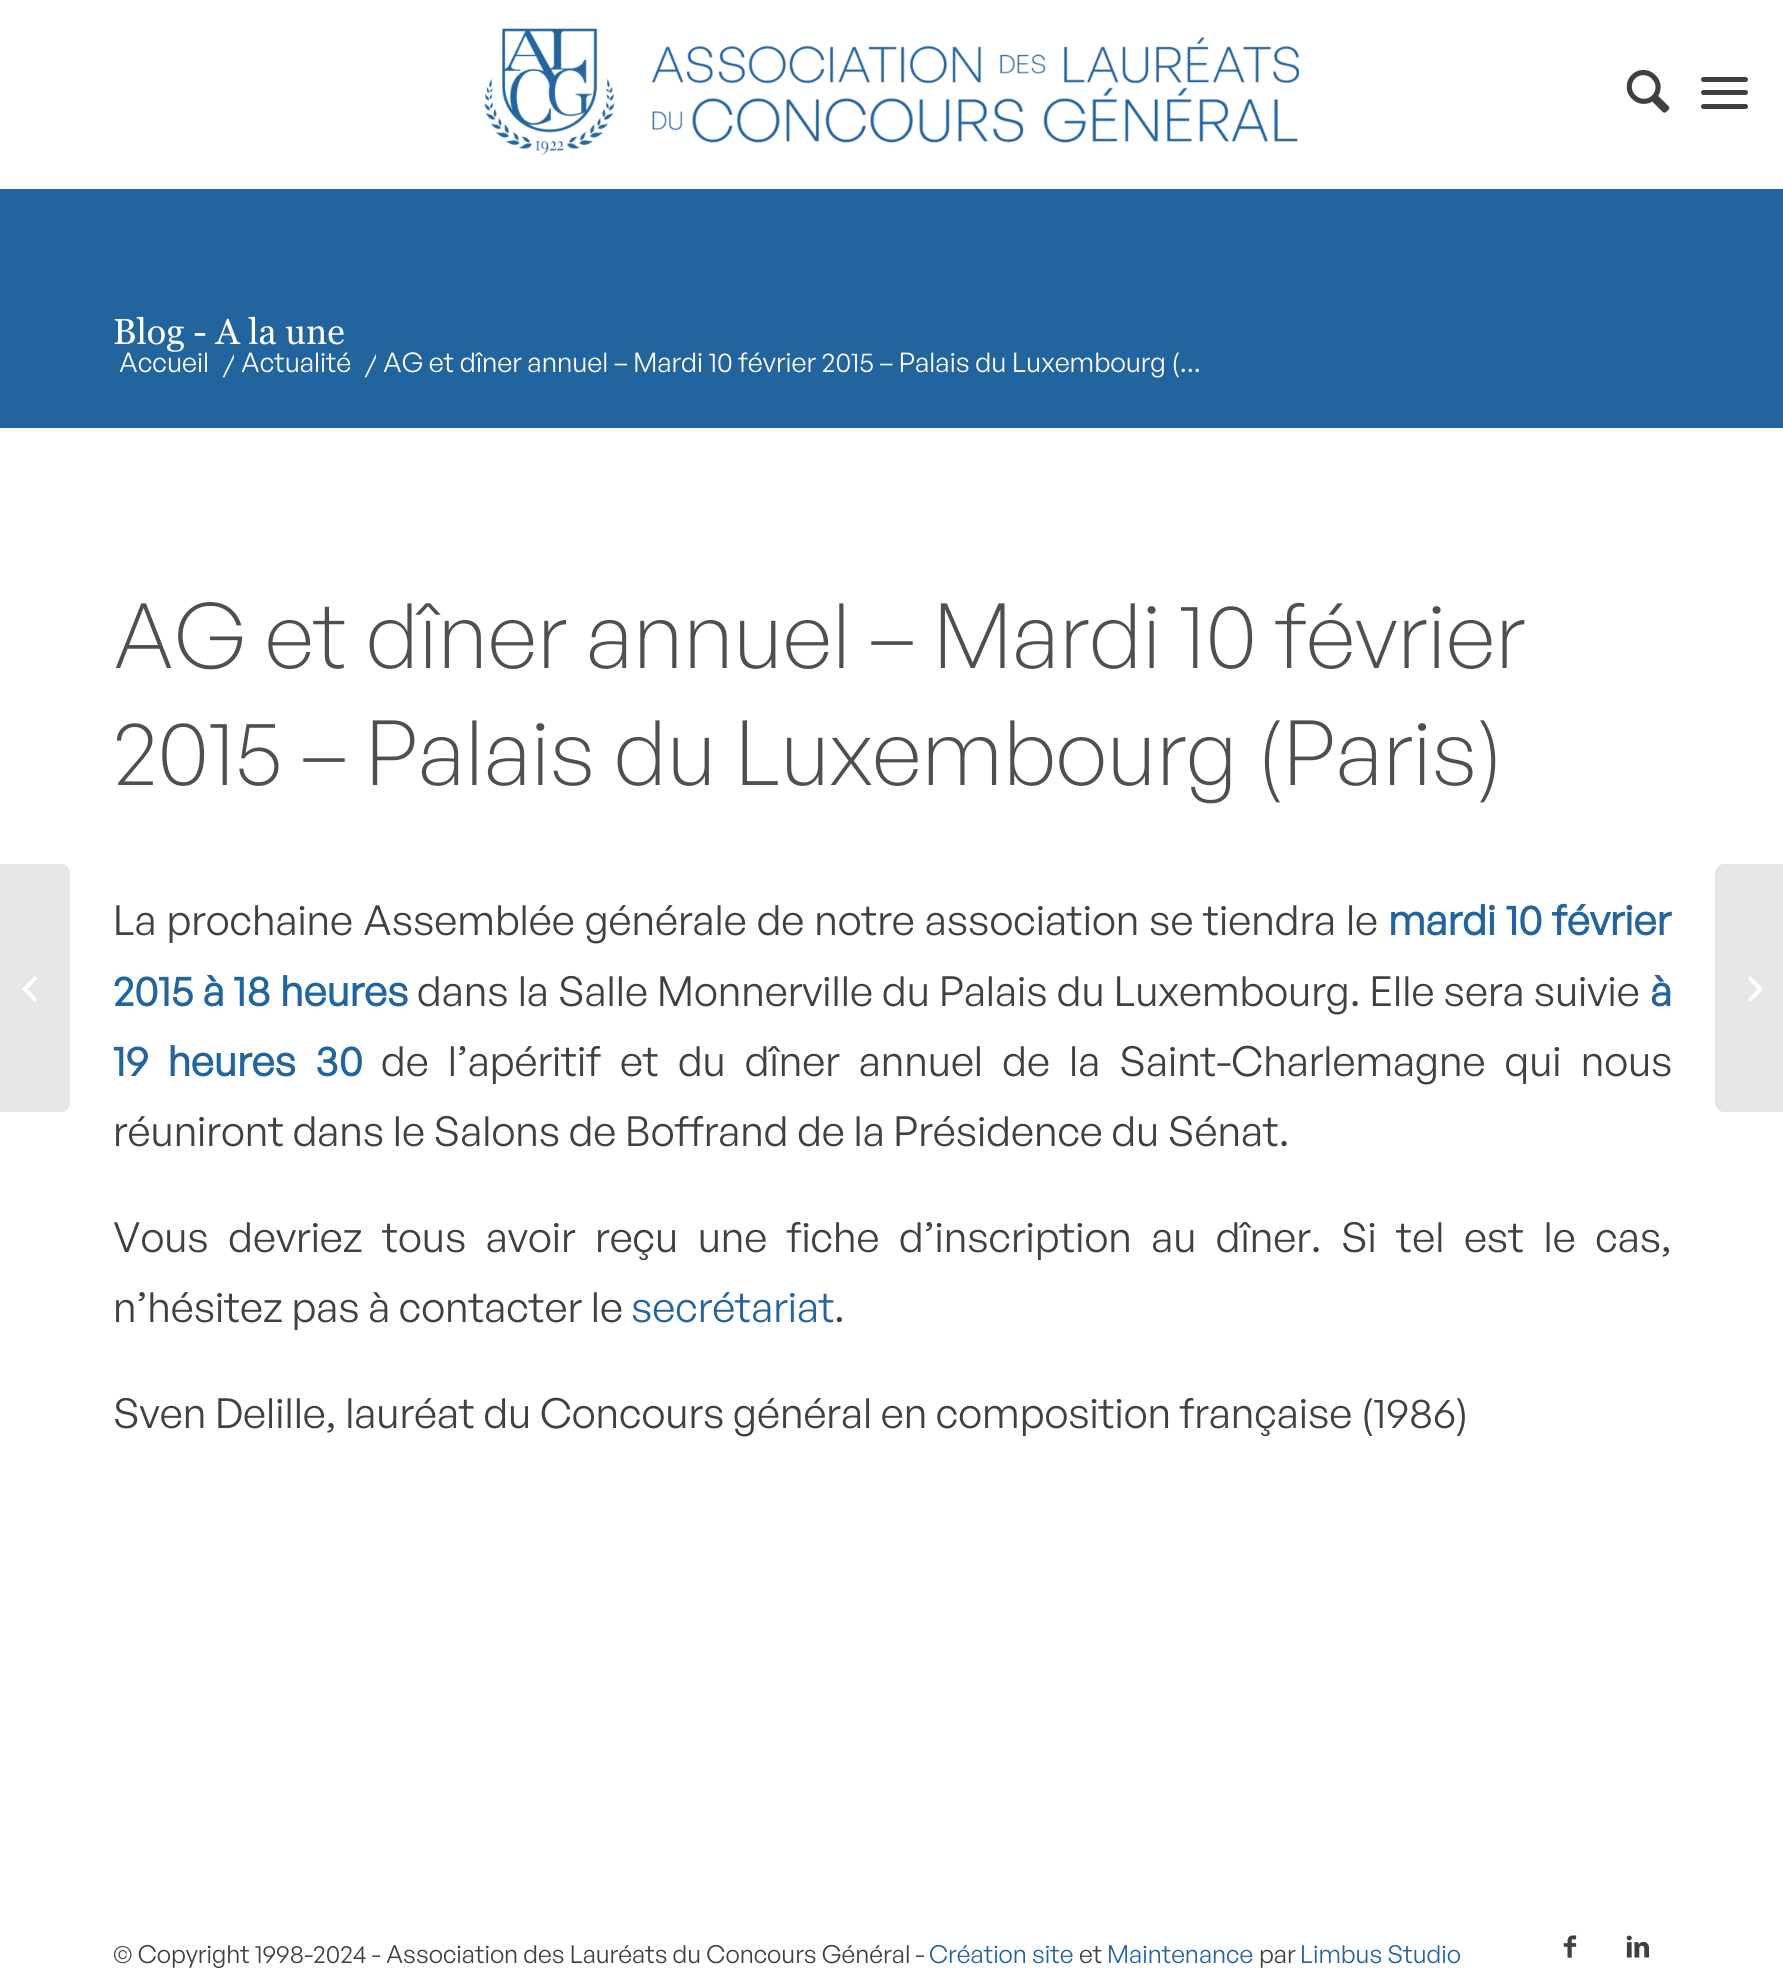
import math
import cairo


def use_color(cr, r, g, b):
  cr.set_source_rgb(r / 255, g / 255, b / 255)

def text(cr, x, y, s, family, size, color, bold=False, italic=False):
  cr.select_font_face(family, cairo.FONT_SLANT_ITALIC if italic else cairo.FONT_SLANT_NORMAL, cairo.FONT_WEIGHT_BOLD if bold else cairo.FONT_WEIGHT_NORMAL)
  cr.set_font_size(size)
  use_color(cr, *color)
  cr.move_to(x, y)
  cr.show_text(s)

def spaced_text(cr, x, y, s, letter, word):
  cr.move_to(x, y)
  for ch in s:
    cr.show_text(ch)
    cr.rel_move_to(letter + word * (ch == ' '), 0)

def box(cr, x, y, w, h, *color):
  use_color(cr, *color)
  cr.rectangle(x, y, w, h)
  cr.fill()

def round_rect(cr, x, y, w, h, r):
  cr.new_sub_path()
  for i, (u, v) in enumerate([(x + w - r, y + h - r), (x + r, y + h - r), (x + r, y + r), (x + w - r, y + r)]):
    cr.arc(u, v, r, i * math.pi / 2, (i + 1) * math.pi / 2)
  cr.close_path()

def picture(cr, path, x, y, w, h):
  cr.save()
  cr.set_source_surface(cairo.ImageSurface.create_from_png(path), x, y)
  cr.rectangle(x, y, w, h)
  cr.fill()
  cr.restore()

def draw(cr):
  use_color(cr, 255, 255, 255)
  cr.paint()
  picture(cr, "img_01.png", 484, 28, 815, 127)
  picture(cr, "img_02.png", 1626, 70, 44, 43)
  use_color(cr, 64, 64, 64)
  round_rect(cr, 1701, 90, 47, 5, 2.5)
  cr.fill()
  round_rect(cr, 1701, 77, 47, 5, 2.5)
  cr.fill()
  round_rect(cr, 1701, 104, 47, 5, 2.5)
  cr.fill()
  use_color(cr, 230, 230, 230)
  cr.new_path()
  cr.move_to(0, 864)
  cr.line_to(61, 864)
  cr.curve_to(66, 864, 70, 868, 70, 873)
  cr.line_to(70, 1103)
  cr.curve_to(70, 1108, 66, 1112, 61, 1112)
  cr.line_to(0, 1112)
  cr.close_path()
  cr.fill()
  picture(cr, "img_03.png", 22, 976, 15, 26)
  box(cr, 0, 189, 1783, 239, 34, 100, 158)
  picture(cr, "img_04.png", 1563, 1935, 14, 23)
  picture(cr, "img_05.png", 1626, 1935, 24, 23)
  use_color(cr, 230, 230, 230)
  cr.new_path()
  cr.move_to(1724, 864)
  cr.line_to(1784, 864)
  cr.line_to(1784, 1112)
  cr.line_to(1724, 1112)
  cr.curve_to(1719, 1112, 1715, 1108, 1715, 1103)
  cr.line_to(1715, 873)
  cr.curve_to(1715, 868, 1719, 864, 1724, 864)
  cr.close_path()
  cr.fill()
  picture(cr, "img_06.png", 1748, 976, 15, 26)
  text(cr, 113, 344, "Blog - A la une", "Georgia", 36, (255, 255, 255))
  text(cr, 119, 372, "Accueil", "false", 27, (255, 255, 255))
  cr.save()
  cr.rectangle(216, 344, 18, 34)
  cr.clip()
  text(cr, 223, 372, "/", "false", 27, (255, 255, 255))
  cr.restore()
  text(cr, 241, 372, "Actualité", "false", 27, (255, 255, 255))
  cr.save()
  cr.rectangle(358, 344, 18, 34)
  cr.clip()
  text(cr, 365, 372, "/", "false", 27, (255, 255, 255))
  cr.restore()
  text(cr, 383, 372, "AG et dîner annuel – Mardi 10 février 2015 – Palais du Luxembourg (...", "false", 27, (255, 255, 255))
  text(cr, 113, 668, "AG et dîner annuel – Mardi 10 février", "General Sans Light", 90, (79, 79, 79))
  text(cr, 113, 785, "2015 – Palais du Luxembourg (Paris)", "General Sans Light", 90, (79, 79, 79))
  cr.select_font_face("false")
  cr.set_font_size(41.4)
  use_color(cr, 64, 64, 64)
  spaced_text(cr, 113, 935, "La prochaine Assemblée générale de notre association se tiendra le", 0, 1.25)
  cr.select_font_face("false", cairo.FONT_SLANT_NORMAL, cairo.FONT_WEIGHT_BOLD)
  use_color(cr, 34, 100, 158)
  spaced_text(cr, 1388, 935, "mardi 10 février", 0, 1)
  spaced_text(cr, 113, 1006, "2015 à 18 heures", 0, 0.5)
  cr.select_font_face("false")
  use_color(cr, 64, 64, 64)
  spaced_text(cr, 417, 1006, "dans la Salle Monnerville du Palais du Luxembourg. Elle sera suivie", 0, 0.5)
  text(cr, 1650, 1006, "à", "false", 41.4, (34, 100, 158), bold=True)
  spaced_text(cr, 113, 1076, "19 heures 30", 0, 10.5)
  cr.select_font_face("false")
  use_color(cr, 64, 64, 64)
  spaced_text(cr, 381, 1076, "de l’apéritif et du dîner annuel de la Saint-Charlemagne qui nous", 0, 10.5)
  text(cr, 113, 1146, "réuniront dans le Salons de Boffrand de la Présidence du Sénat.", "false", 41.4, (64, 64, 64))
  spaced_text(cr, 113, 1252, "Vous devriez tous avoir reçu une fiche d’inscription au dîner. Si tel est le cas,", 0, 10.9)
  text(cr, 113, 1322, "n’hésitez pas à contacter le", "false", 41.4, (64, 64, 64))
  text(cr, 631, 1322, "secrétariat", "false", 41.4, (34, 100, 158))
  text(cr, 834, 1322, ".", "false", 41.4, (64, 64, 64))
  text(cr, 113, 1428, "Sven Delille, lauréat du Concours général en composition française (1986)", "false", 41.4, (64, 64, 64))
  text(cr, 113, 1963, "© Copyright 1998-2024 - Association des Lauréats du Concours Général -", "false", 24.75, (64, 64, 64))
  text(cr, 929, 1963, "Création site", "false", 24.75, (34, 100, 158))
  text(cr, 1079, 1963, "et", "false", 24.75, (64, 64, 64))
  text(cr, 1107, 1963, "Maintenance", "false", 24.75, (34, 100, 158))
  text(cr, 1259, 1963, "par", "false", 24.75, (64, 64, 64))
  text(cr, 1300, 1963, "Limbus Studio", "false", 24.75, (34, 100, 158))


surface = cairo.ImageSurface(cairo.FORMAT_RGB24, 1783, 1973)
cr = cairo.Context(surface)
options = cairo.FontOptions()
options.set_hint_metrics(cairo.HINT_METRICS_OFF)
options.set_hint_style(cairo.HINT_STYLE_NONE)
cr.set_font_options(options)
cr.set_miter_limit(4)
draw(cr)
surface.write_to_png("out.png")
